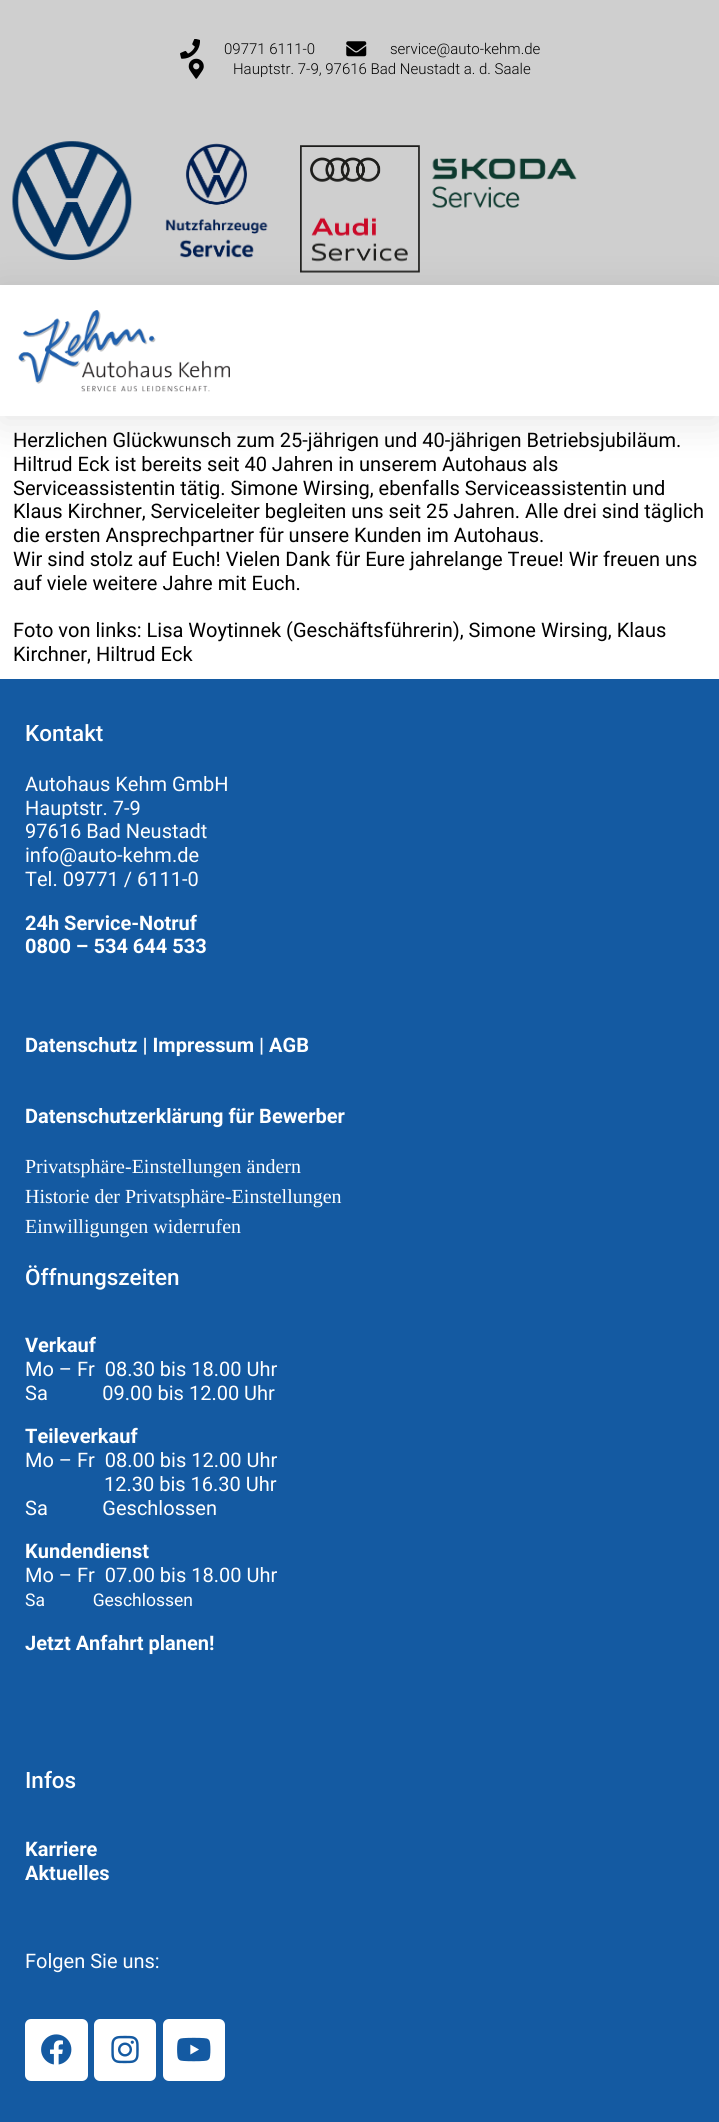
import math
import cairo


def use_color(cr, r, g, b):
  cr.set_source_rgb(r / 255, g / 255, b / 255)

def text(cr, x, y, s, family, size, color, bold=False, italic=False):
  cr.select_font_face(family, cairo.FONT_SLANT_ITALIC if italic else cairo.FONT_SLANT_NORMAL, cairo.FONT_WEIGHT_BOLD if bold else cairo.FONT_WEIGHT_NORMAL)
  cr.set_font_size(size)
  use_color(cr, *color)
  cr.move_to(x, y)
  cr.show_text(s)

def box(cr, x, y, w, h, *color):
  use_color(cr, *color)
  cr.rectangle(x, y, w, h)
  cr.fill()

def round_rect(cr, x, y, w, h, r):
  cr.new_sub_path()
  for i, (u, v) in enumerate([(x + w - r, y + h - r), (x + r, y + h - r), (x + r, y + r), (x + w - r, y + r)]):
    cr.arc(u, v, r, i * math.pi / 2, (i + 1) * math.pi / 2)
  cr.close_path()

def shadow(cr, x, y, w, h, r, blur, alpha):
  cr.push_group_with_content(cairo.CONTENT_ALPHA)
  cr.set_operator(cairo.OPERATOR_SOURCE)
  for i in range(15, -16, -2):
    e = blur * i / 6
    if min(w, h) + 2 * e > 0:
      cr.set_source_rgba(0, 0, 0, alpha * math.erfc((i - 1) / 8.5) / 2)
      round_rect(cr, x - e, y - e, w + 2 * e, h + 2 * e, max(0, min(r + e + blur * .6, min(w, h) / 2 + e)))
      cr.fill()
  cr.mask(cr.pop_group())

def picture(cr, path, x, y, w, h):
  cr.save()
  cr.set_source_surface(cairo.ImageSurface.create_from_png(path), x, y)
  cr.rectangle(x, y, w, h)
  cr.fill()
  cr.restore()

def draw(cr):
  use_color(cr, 255, 255, 255)
  cr.paint()
  box(cr, 0, 0, 719, 285, 207, 207, 207)
  picture(cr, "img_01.png", 180, 39, 20, 20)
  picture(cr, "img_02.png", 346, 41, 21, 16)
  picture(cr, "img_03.png", 188, 58, 16, 21)
  picture(cr, "img_04.png", 12, 141, 120, 119)
  picture(cr, "img_05.png", 165, 143, 103, 115)
  picture(cr, "img_06.png", 300, 145, 120, 128)
  picture(cr, "img_07.png", 432, 158, 145, 50)
  use_color(cr, 0, 0, 0)
  shadow(cr, 0, 291, 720, 132, 0, 19, 0.1)
  box(cr, 0, 285, 719, 131, 255, 255, 255)
  picture(cr, "img_08.png", 18, 310, 212, 82)
  box(cr, 0, 679, 719, 1443, 20, 90, 162)
  use_color(cr, 255, 255, 255)
  round_rect(cr, 25, 2019, 63, 62, 6)
  cr.fill()
  picture(cr, "img_09.png", 41, 2034, 31, 31)
  round_rect(cr, 94, 2019, 62, 62, 6)
  cr.fill()
  picture(cr, "img_10.png", 111, 2035, 28, 29)
  round_rect(cr, 163, 2019, 62, 62, 6)
  cr.fill()
  picture(cr, "img_11.png", 177, 2037, 34, 25)
  text(cr, 224, 54, "09771 6111-0", "Roboto Light", 15, (0, 0, 0))
  text(cr, 390, 54, "service@auto-kehm.de", "Roboto Light", 15, (0, 0, 0))
  text(cr, 233, 74, "Hauptstr. 7-9, 97616 Bad Neustadt a. d. Saale", "Roboto Light", 15, (0, 0, 0))
  text(cr, 13, 447, "Herzlichen Glückwunsch zum 25-jährigen und 40-jährigen Betriebsjubiläum.", "Roboto", 20, (0, 0, 0))
  text(cr, 13, 471, "Hiltrud Eck ist bereits seit 40 Jahren in unserem Autohaus als", "Roboto", 20, (0, 0, 0))
  text(cr, 13, 495, "Serviceassistentin tätig. Simone Wirsing, ebenfalls Serviceassistentin und", "Roboto", 20, (0, 0, 0))
  text(cr, 13, 518, "Klaus Kirchner, Serviceleiter begleiten uns seit 25 Jahren. Alle drei sind täglich", "Roboto", 20, (0, 0, 0))
  text(cr, 13, 542, "die ersten Ansprechpartner für unsere Kunden im Autohaus.", "Roboto", 20, (0, 0, 0))
  text(cr, 13, 566, "Wir sind stolz auf Euch! Vielen Dank für Eure jahrelange Treue! Wir freuen uns", "Roboto", 20, (0, 0, 0))
  text(cr, 13, 590, "auf viele weitere Jahre mit Euch.", "Roboto", 20, (0, 0, 0))
  text(cr, 13, 637, "Foto von links: Lisa Woytinnek (Geschäftsführerin), Simone Wirsing, Klaus", "Roboto", 20, (0, 0, 0))
  text(cr, 13, 661, "Kirchner, Hiltrud Eck", "Roboto", 20, (0, 0, 0))
  text(cr, 25, 741, "Kontakt", "Roboto Medium", 22.5, (255, 255, 255))
  text(cr, 25, 791, "Autohaus Kehm GmbH", "Roboto", 20, (255, 255, 255))
  text(cr, 25, 815, "Hauptstr. 7-9", "Roboto", 20, (255, 255, 255))
  text(cr, 25, 838, "97616 Bad Neustadt", "Roboto", 20, (255, 255, 255))
  text(cr, 25, 862, "info@auto-kehm.de", "Roboto", 20, (255, 255, 255))
  text(cr, 25, 886, "Tel. 09771 / 6111-0", "Roboto", 20, (255, 255, 255))
  text(cr, 25, 930, "24h Service-Notruf", "Roboto", 20, (255, 255, 255), bold=True)
  text(cr, 25, 953, "0800 – 534 644 533", "Roboto", 20, (255, 255, 255), bold=True)
  text(cr, 25, 1052, "Datenschutz | Impressum | AGB", "Roboto", 20, (255, 255, 255), bold=True)
  text(cr, 25, 1123, "Datenschutzerklärung für Bewerber", "Roboto", 20, (255, 255, 255), bold=True)
  text(cr, 25, 1173, "Privatsphäre-Einstellungen ändern", "Liberation Serif", 20, (255, 255, 255))
  text(cr, 25, 1203, "Historie der Privatsphäre-Einstellungen", "Liberation Serif", 20, (255, 255, 255))
  text(cr, 25, 1233, "Einwilligungen widerrufen", "Liberation Serif", 20, (255, 255, 255))
  text(cr, 25, 1285, "Öffnungszeiten", "Roboto Medium", 22.5, (255, 255, 255))
  text(cr, 25, 1352, "Verkauf", "Roboto", 20, (255, 255, 255), bold=True)
  text(cr, 25, 1376, "Mo – Fr  08.30 bis 18.00 Uhr", "Roboto", 20, (255, 255, 255))
  text(cr, 25, 1400, "Sa           09.00 bis 12.00 Uhr", "Roboto", 20, (255, 255, 255))
  text(cr, 25, 1443, "Teileverkauf", "Roboto", 20, (255, 255, 255), bold=True)
  text(cr, 25, 1467, "Mo – Fr  08.00 bis 12.00 Uhr", "Roboto", 20, (255, 255, 255))
  text(cr, 104, 1491, "12.30 bis 16.30 Uhr", "Roboto", 20, (255, 255, 255))
  text(cr, 25, 1515, "Sa           Geschlossen", "Roboto", 20, (255, 255, 255))
  text(cr, 25, 1558, "Kundendienst", "Roboto", 20, (255, 255, 255), bold=True)
  text(cr, 25, 1582, "Mo – Fr  07.00 bis 18.00 Uhr", "Roboto", 20, (255, 255, 255))
  text(cr, 25, 1606, "Sa           Geschlossen", "Roboto", 17.5, (255, 255, 255))
  text(cr, 25, 1650, "Jetzt Anfahrt planen!", "Roboto", 20, (255, 255, 255), bold=True)
  text(cr, 25, 1788, "Infos", "Roboto Medium", 22.5, (255, 255, 255))
  text(cr, 25, 1856, "Karriere", "Roboto", 20, (255, 255, 255), bold=True)
  text(cr, 25, 1880, "Aktuelles", "Roboto", 20, (255, 255, 255), bold=True)
  text(cr, 25, 1968, "Folgen Sie uns:", "Roboto", 20, (255, 255, 255))


surface = cairo.ImageSurface(cairo.FORMAT_RGB24, 719, 2122)
cr = cairo.Context(surface)
options = cairo.FontOptions()
options.set_hint_metrics(cairo.HINT_METRICS_OFF)
options.set_hint_style(cairo.HINT_STYLE_NONE)
cr.set_font_options(options)
cr.set_miter_limit(4)
draw(cr)
surface.write_to_png("out.png")
